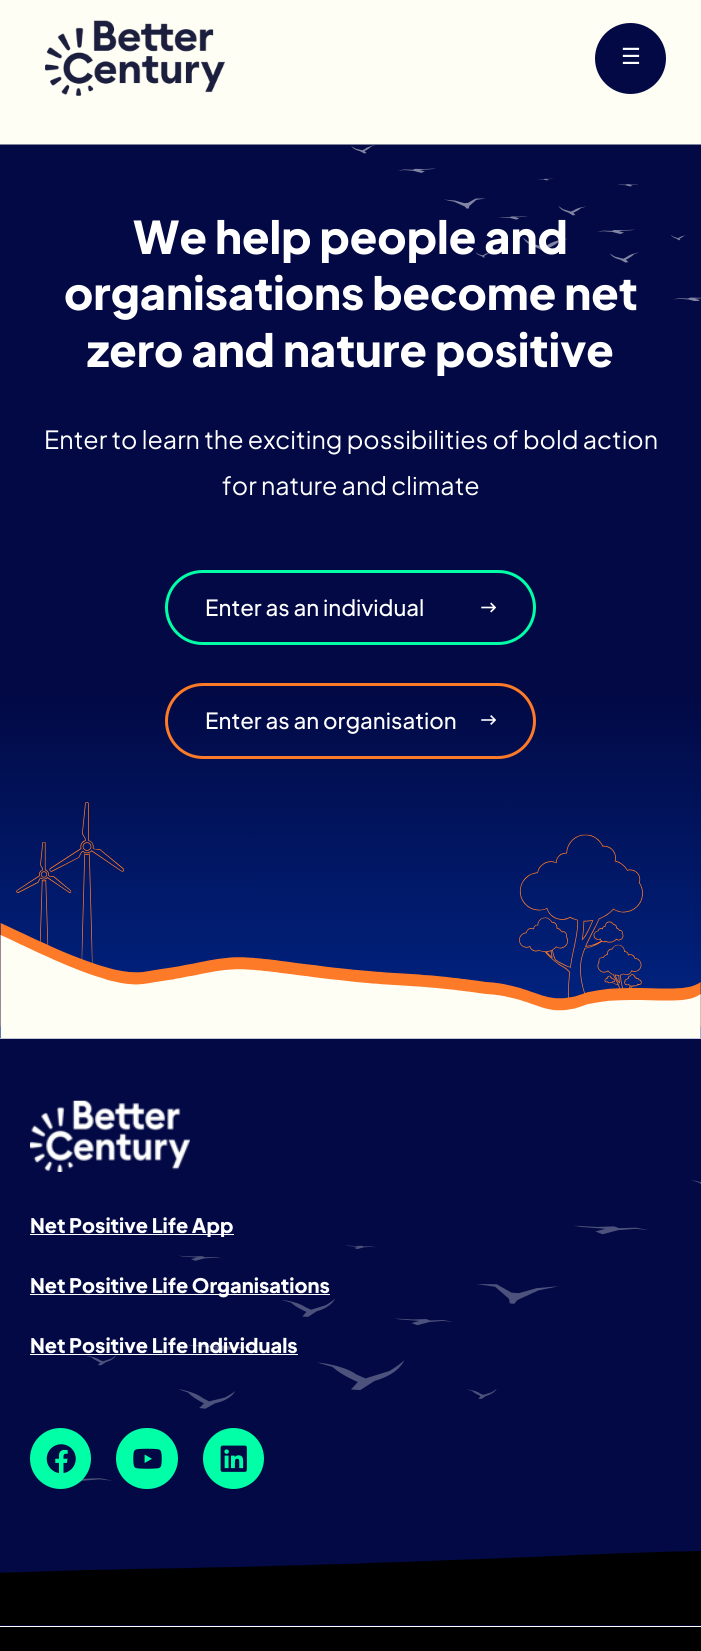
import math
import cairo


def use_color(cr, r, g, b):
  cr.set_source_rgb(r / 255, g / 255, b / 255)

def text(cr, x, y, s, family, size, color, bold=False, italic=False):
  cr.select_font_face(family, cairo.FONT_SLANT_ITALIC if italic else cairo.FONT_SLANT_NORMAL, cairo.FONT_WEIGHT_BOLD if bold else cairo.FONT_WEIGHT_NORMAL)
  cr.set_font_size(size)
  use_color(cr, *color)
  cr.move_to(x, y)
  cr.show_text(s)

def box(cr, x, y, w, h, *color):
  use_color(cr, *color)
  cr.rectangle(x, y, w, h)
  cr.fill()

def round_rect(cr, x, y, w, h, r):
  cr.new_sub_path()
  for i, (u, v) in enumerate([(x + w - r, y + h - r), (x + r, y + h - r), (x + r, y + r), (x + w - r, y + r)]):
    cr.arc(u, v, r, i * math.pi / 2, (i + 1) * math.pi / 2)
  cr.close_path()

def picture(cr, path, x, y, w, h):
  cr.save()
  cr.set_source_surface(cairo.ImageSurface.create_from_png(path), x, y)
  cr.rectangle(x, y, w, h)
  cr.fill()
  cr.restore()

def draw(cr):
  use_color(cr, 255, 254, 244)
  cr.paint()
  picture(cr, "img_01.png", 45, 20, 180, 76)
  use_color(cr, 2, 9, 68)
  cr.arc(630.5, 58.5, 34, 0, 2 * math.pi)
  cr.fill_preserve()
  cr.set_line_width(3)
  cr.stroke()
  picture(cr, "img_02.png", 0, 144, 701, 895)
  round_rect(cr, 166.5, 571.5, 368, 72, 36)
  use_color(cr, 0, 255, 167)
  cr.stroke()
  picture(cr, "img_04.png", 481, 602, 15, 11)
  round_rect(cr, 166.5, 684.5, 368, 73, 36.5)
  use_color(cr, 252, 122, 40)
  cr.stroke()
  picture(cr, "img_05.png", 481, 715, 15, 10)
  box(cr, 0, 1039, 701, 587, 2, 9, 68)
  picture(cr, "img_06.png", 80, 1180, 621, 302)
  picture(cr, "img_07.png", 30, 1100, 160, 72)
  box(cr, 30, 1234, 204, 1, 255, 255, 255)
  box(cr, 30, 1294, 300, 1, 255, 255, 255)
  box(cr, 30, 1354, 268, 1, 255, 255, 255)
  use_color(cr, 0, 255, 167)
  cr.arc(60.5, 1458.5, 30.5, 0, 2 * math.pi)
  cr.fill()
  picture(cr, "img_08.png", 46, 1444, 30, 29)
  round_rect(cr, 116, 1428, 62, 61, 30.5)
  cr.fill()
  picture(cr, "img_09.png", 133, 1448, 29, 21)
  cr.arc(233.5, 1458.5, 30.5, 0, 2 * math.pi)
  cr.fill()
  picture(cr, "img_10.png", 220, 1445, 27, 27)
  box(cr, 0, 1627, 701, 24, 0, 0, 0)
  box(cr, 0, 1626, 701, 1, 255, 255, 255)
  picture(cr, "img_11.png", 0, 1551, 701, 75)
  text(cr, 621, 64, "☰", "DejaVu Sans", 22.25, (255, 255, 255))
  text(cr, 133, 254, "We help people and", "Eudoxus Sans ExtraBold", 45, (255, 255, 255))
  text(cr, 64, 310, "organisations become net", "Eudoxus Sans ExtraBold", 45, (255, 255, 255))
  picture(cr, "img_03.png", 351, 145, 350, 156)
  text(cr, 87, 367, "zero and nature positive", "Eudoxus Sans ExtraBold", 45, (255, 255, 255))
  text(cr, 44, 449, "Enter to learn the exciting possibilities of bold action", "Eudoxus Sans", 25, (255, 255, 255))
  text(cr, 222, 495, "for nature and climate", "Eudoxus Sans", 25, (255, 255, 255))
  text(cr, 205, 616, "Enter as an individual", "Eudoxus Sans Medium", 22.25, (255, 255, 255))
  text(cr, 205, 729, "Enter as an organisation", "Eudoxus Sans Medium", 22.25, (255, 255, 255))
  text(cr, 30, 1233, "Net Positive Life App", "Eudoxus Sans ExtraBold", 20, (255, 255, 255))
  text(cr, 30, 1293, "Net Positive Life Organisations", "Eudoxus Sans ExtraBold", 20, (255, 255, 255))
  text(cr, 30, 1353, "Net Positive Life Individuals", "Eudoxus Sans ExtraBold", 20, (255, 255, 255))


surface = cairo.ImageSurface(cairo.FORMAT_RGB24, 701, 1651)
cr = cairo.Context(surface)
options = cairo.FontOptions()
options.set_hint_metrics(cairo.HINT_METRICS_OFF)
options.set_hint_style(cairo.HINT_STYLE_NONE)
cr.set_font_options(options)
cr.set_miter_limit(4)
draw(cr)
surface.write_to_png("out.png")
